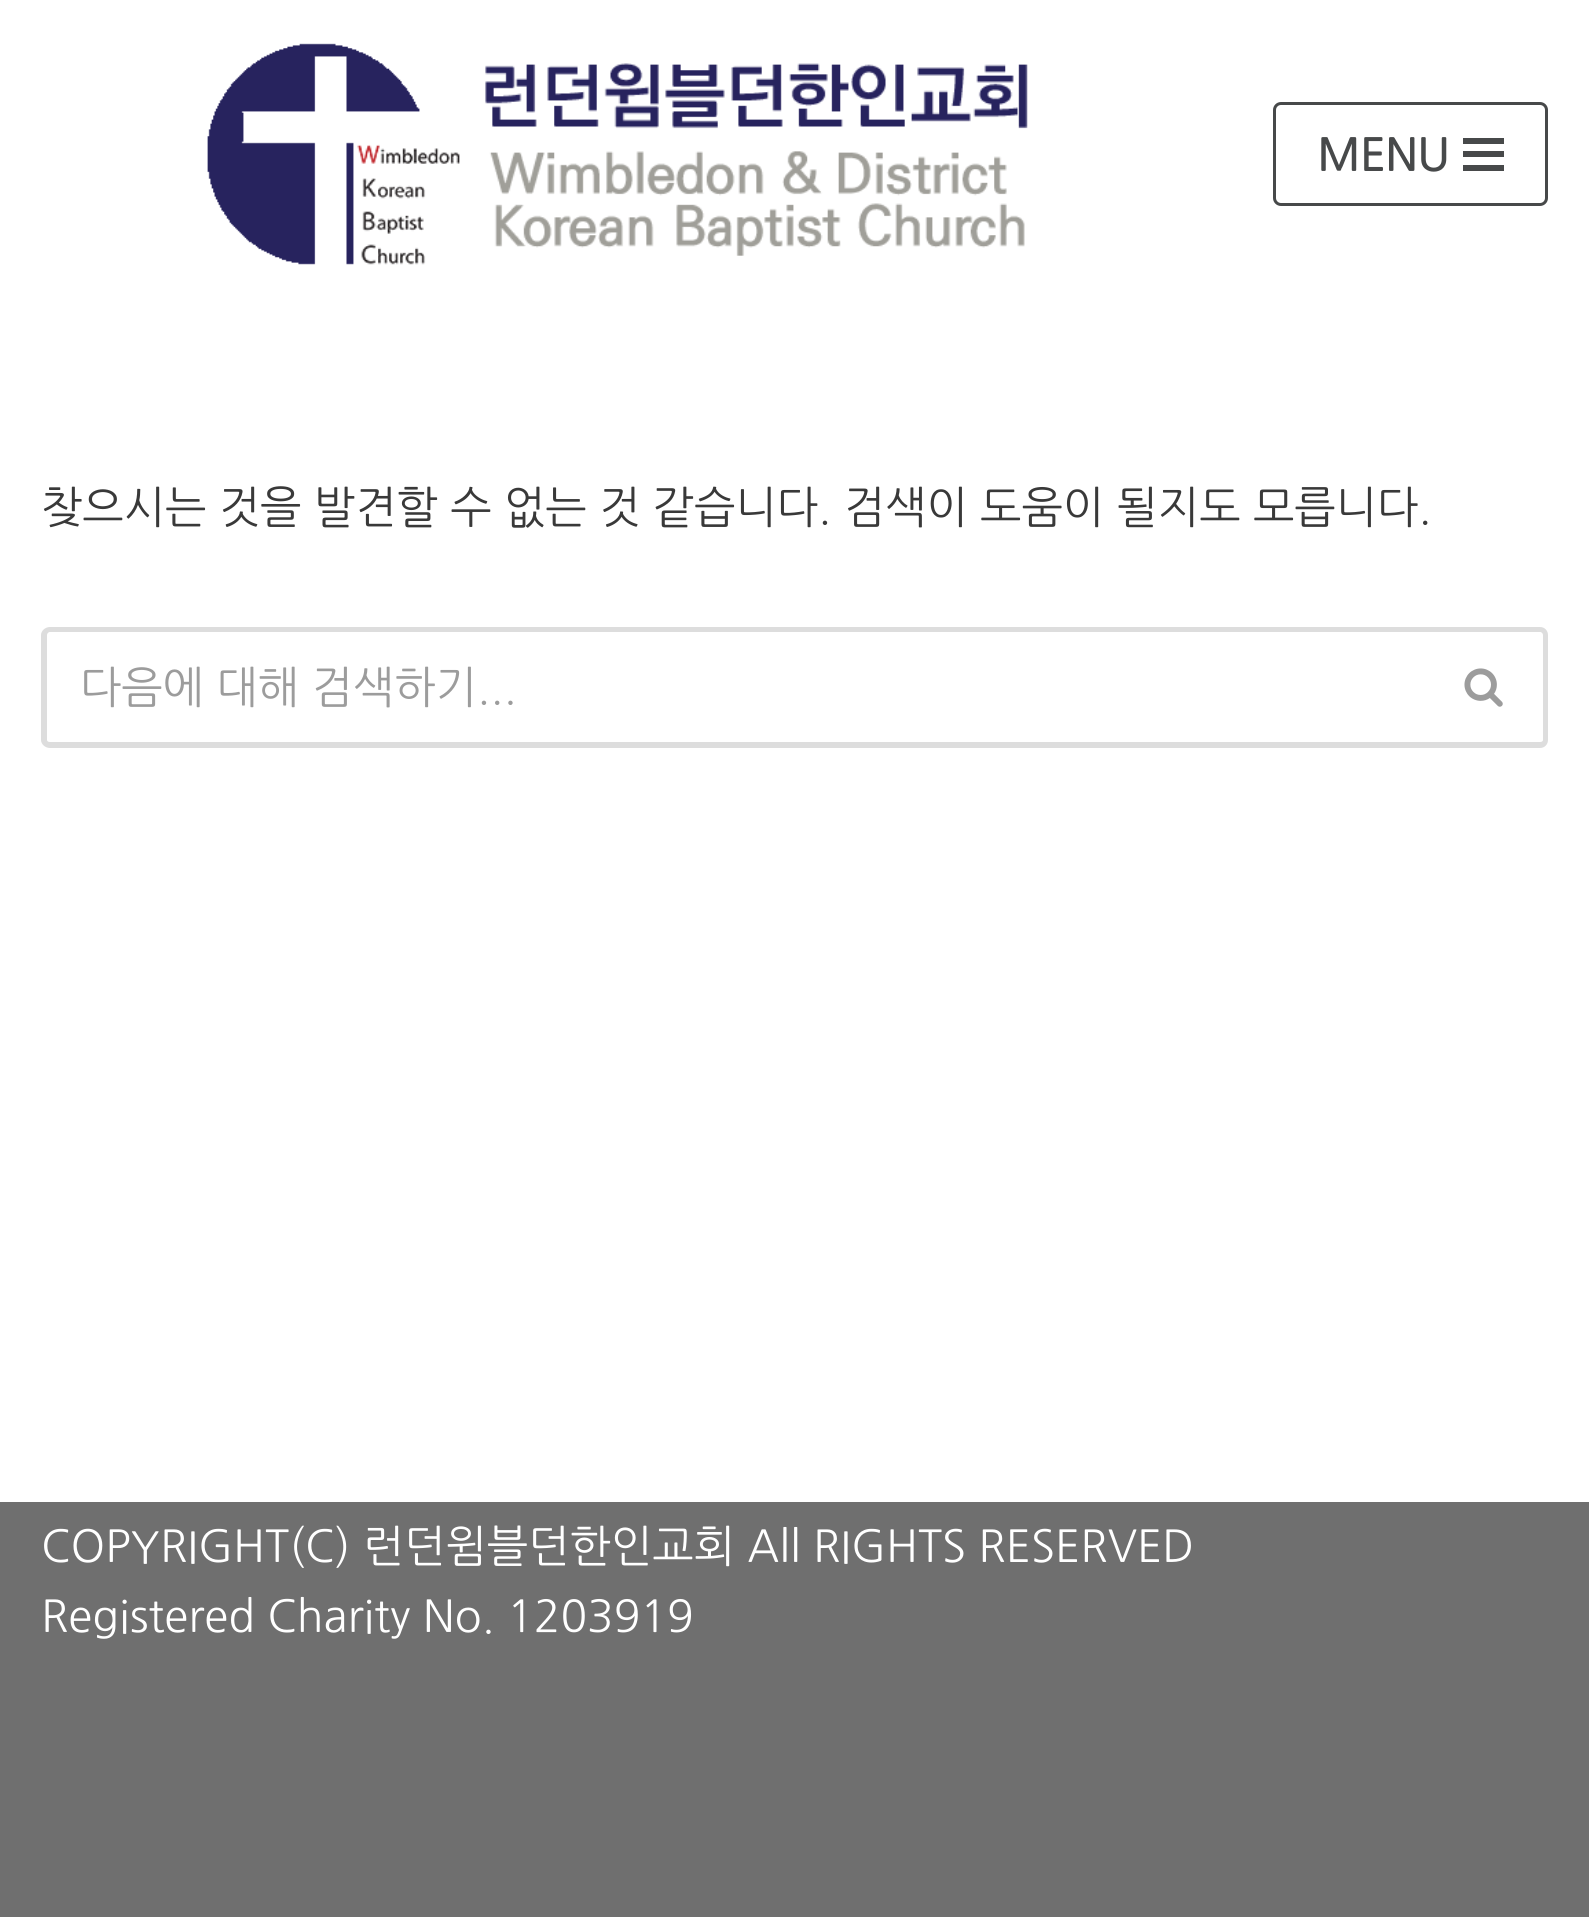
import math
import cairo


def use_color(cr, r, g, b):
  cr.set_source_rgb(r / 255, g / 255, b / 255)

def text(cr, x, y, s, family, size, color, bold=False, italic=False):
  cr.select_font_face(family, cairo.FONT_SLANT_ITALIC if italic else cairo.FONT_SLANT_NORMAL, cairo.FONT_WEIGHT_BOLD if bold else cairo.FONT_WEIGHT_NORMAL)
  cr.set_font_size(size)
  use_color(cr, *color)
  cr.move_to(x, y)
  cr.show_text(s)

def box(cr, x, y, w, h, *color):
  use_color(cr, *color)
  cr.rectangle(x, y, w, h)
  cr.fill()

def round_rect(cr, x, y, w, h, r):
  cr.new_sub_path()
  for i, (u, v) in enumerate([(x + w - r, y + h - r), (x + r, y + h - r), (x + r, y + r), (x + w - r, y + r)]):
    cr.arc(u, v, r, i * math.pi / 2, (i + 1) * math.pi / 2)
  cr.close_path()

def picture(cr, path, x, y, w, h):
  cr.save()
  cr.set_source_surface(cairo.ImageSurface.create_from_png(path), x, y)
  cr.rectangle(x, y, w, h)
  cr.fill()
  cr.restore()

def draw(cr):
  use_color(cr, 255, 255, 255)
  cr.paint()
  picture(cr, "img_01.png", 207, 43, 821, 222)
  round_rect(cr, 1274.5, 103.5, 272, 101, 6.5)
  use_color(cr, 71, 73, 74)
  cr.set_line_width(3)
  cr.stroke()
  box(cr, 1463, 138, 41, 6, 71, 73, 74)
  box(cr, 1463, 151, 41, 6, 71, 73, 74)
  box(cr, 1463, 165, 41, 6, 71, 73, 74)
  use_color(cr, 221, 221, 221)
  cr.set_fill_rule(cairo.FILL_RULE_EVEN_ODD)
  cr.new_path()
  cr.move_to(50, 627)
  cr.line_to(1424, 627)
  cr.line_to(1424, 748)
  cr.line_to(50, 748)
  cr.curve_to(45, 748, 41, 744, 41, 740)
  cr.line_to(41, 635)
  cr.curve_to(41, 631, 45, 627, 50, 627)
  cr.close_path()
  cr.move_to(50, 632)
  cr.line_to(1424, 632)
  cr.line_to(1424, 742)
  cr.line_to(50, 742)
  cr.curve_to(48, 742, 47, 741, 47, 740)
  cr.line_to(47, 635)
  cr.curve_to(47, 634, 48, 632, 50, 632)
  cr.close_path()
  cr.fill()
  cr.new_path()
  cr.move_to(1424, 627)
  cr.line_to(1540, 627)
  cr.curve_to(1545, 627, 1548, 631, 1548, 635)
  cr.line_to(1548, 740)
  cr.curve_to(1548, 744, 1545, 748, 1540, 748)
  cr.line_to(1424, 748)
  cr.close_path()
  cr.move_to(1424, 632)
  cr.line_to(1540, 632)
  cr.curve_to(1542, 632, 1543, 634, 1543, 635)
  cr.line_to(1543, 740)
  cr.curve_to(1543, 741, 1542, 742, 1540, 742)
  cr.line_to(1424, 742)
  cr.close_path()
  cr.fill()
  picture(cr, "img_02.png", 1464, 668, 39, 39)
  box(cr, 0, 1502, 1589, 415, 111, 111, 111)
  text(cr, 1317, 171, "MENU", "NanumGothic", 44, (71, 73, 74), bold=True)
  text(cr, 41, 523, "찾으시는 것을 발견할 수 없는 것 같습니다. 검색이 도움이 될지도 모릅니다.", "NanumGothic", 44, (57, 57, 57))
  text(cr, 80, 703, "다음에 대해 검색하기...", "NanumGothic", 44, (156, 156, 156))
  text(cr, 41, 1562, "COPYRIGHT(C) 런던윔블던한인교회 All RIGHTS RESERVED", "NanumGothic", 44, (255, 255, 255))
  text(cr, 41, 1632, "Registered Charity No. 1203919", "NanumGothic", 44, (255, 255, 255))


surface = cairo.ImageSurface(cairo.FORMAT_RGB24, 1589, 1917)
cr = cairo.Context(surface)
options = cairo.FontOptions()
options.set_hint_metrics(cairo.HINT_METRICS_OFF)
options.set_hint_style(cairo.HINT_STYLE_NONE)
cr.set_font_options(options)
cr.set_miter_limit(4)
draw(cr)
surface.write_to_png("out.png")
